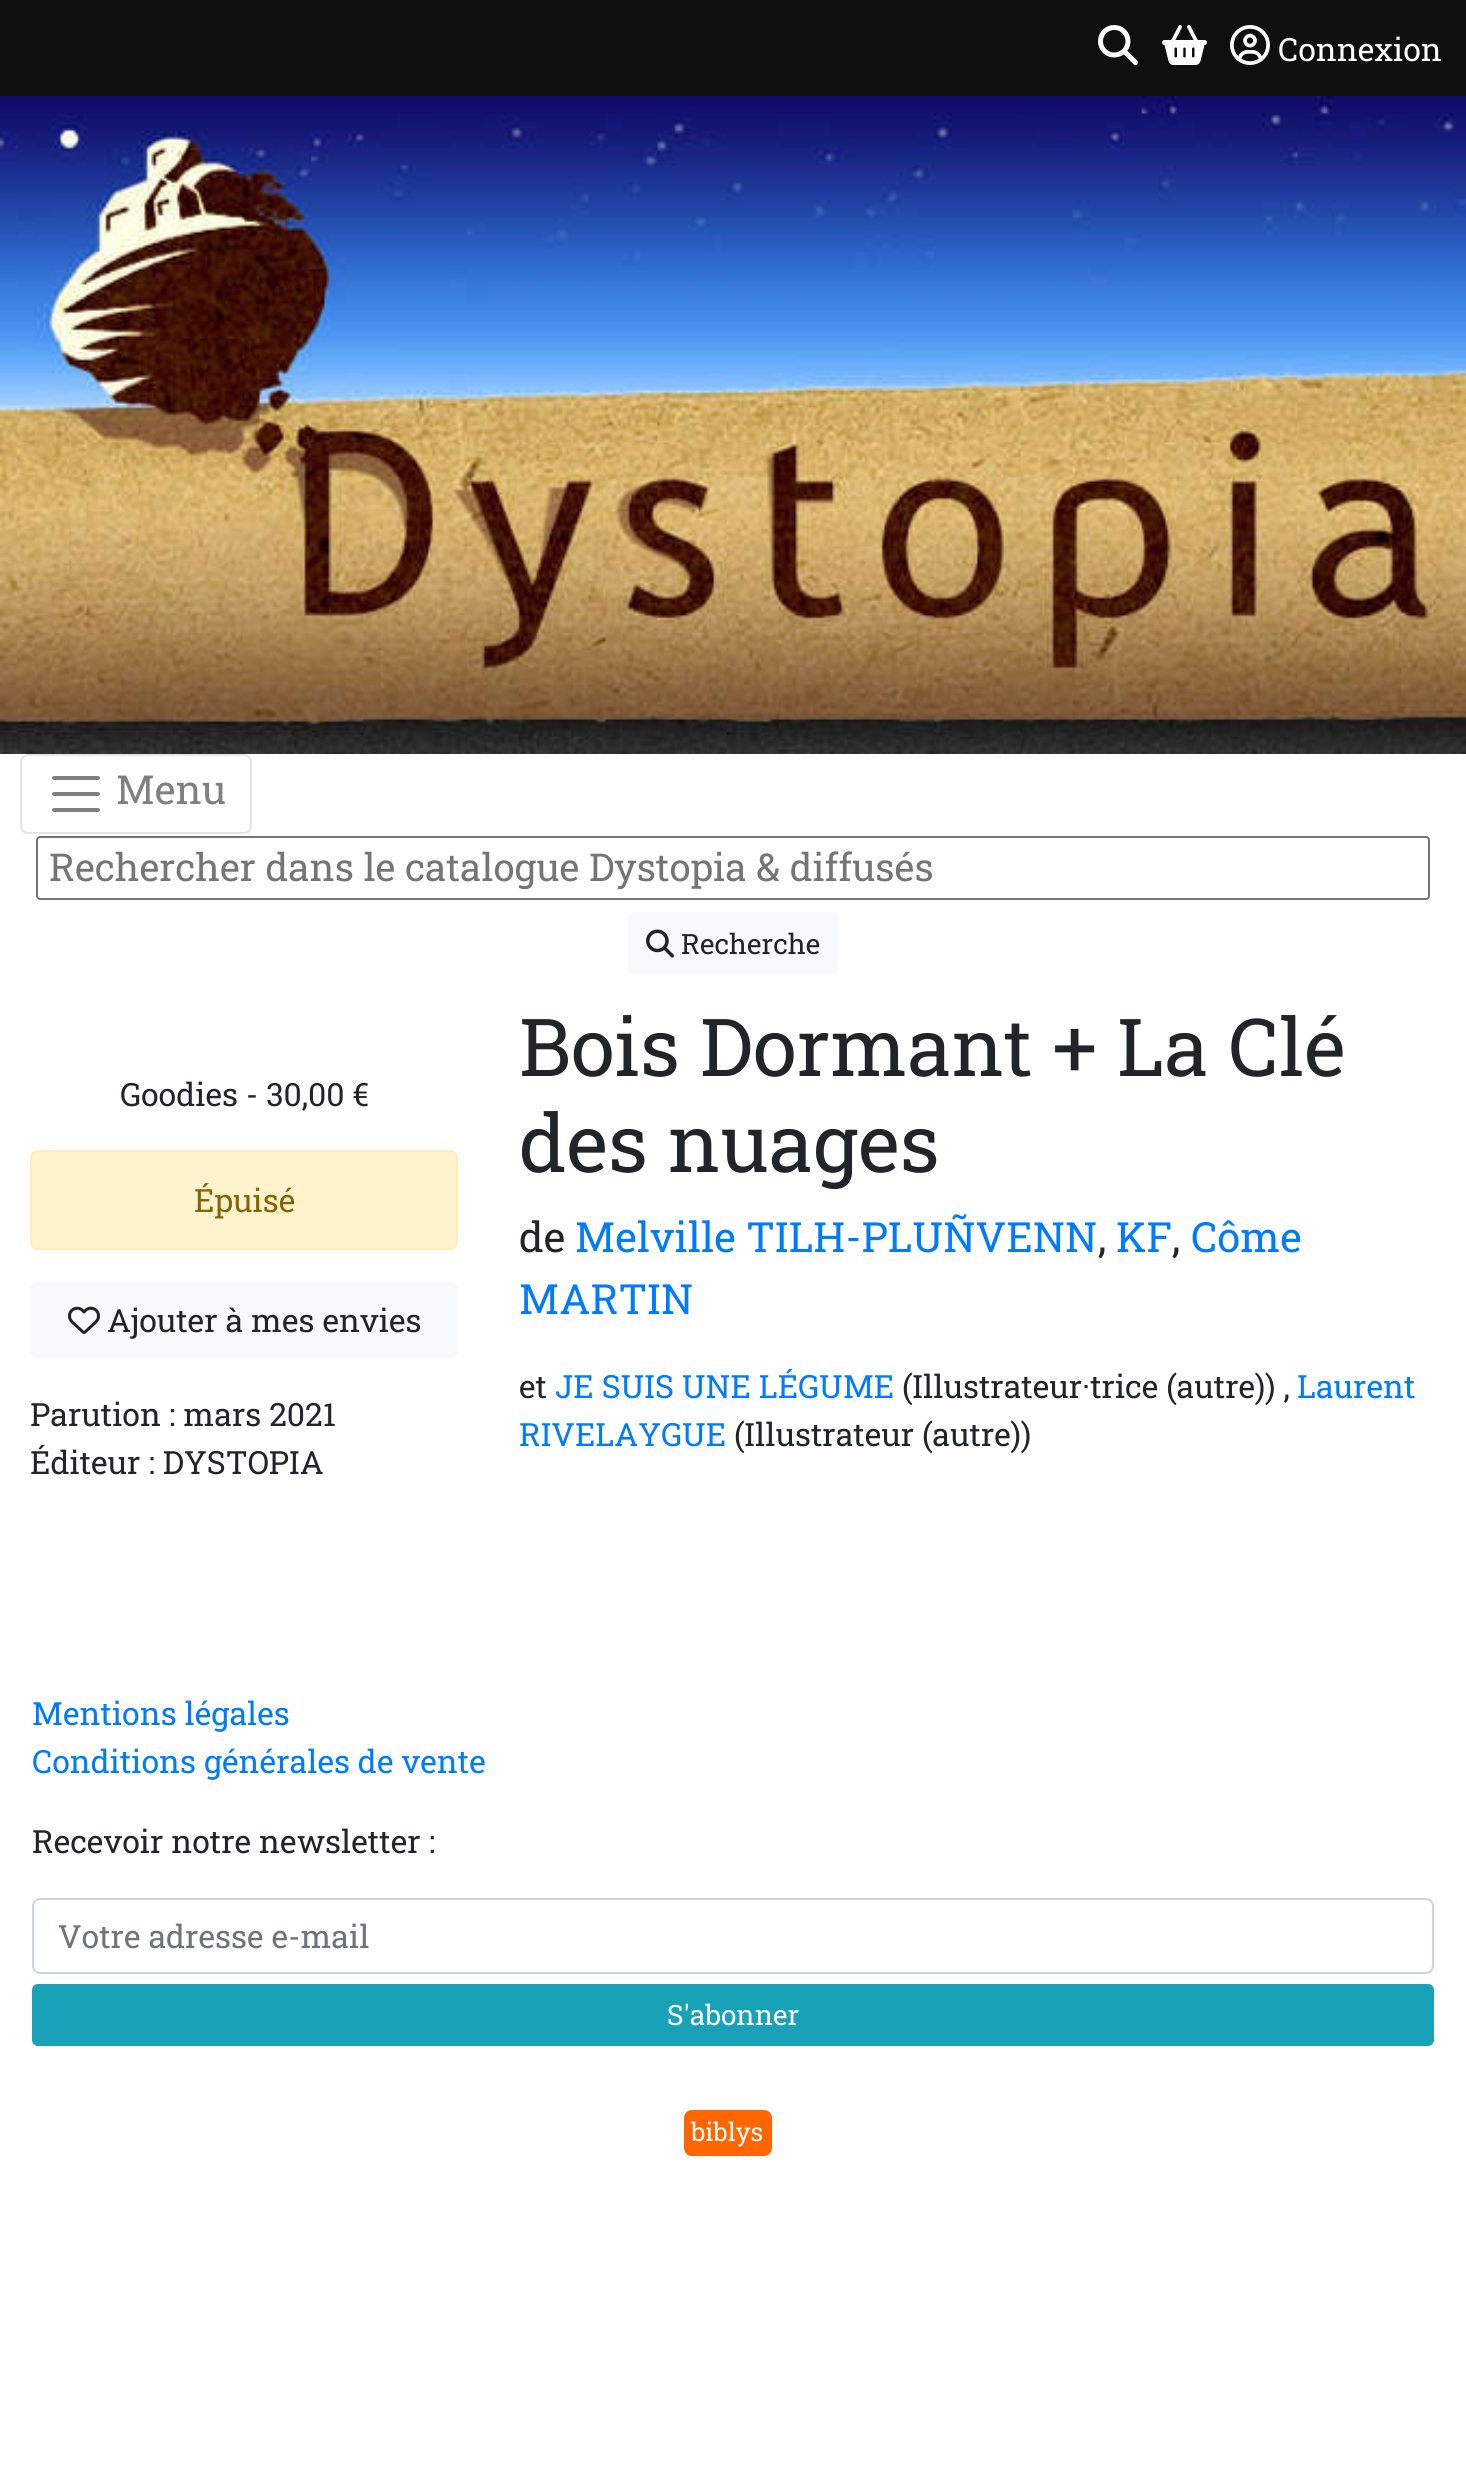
import math
import cairo


def use_color(cr, r, g, b):
  cr.set_source_rgb(r / 255, g / 255, b / 255)

def text(cr, x, y, s, family, size, color, bold=False, italic=False):
  cr.select_font_face(family, cairo.FONT_SLANT_ITALIC if italic else cairo.FONT_SLANT_NORMAL, cairo.FONT_WEIGHT_BOLD if bold else cairo.FONT_WEIGHT_NORMAL)
  cr.set_font_size(size)
  use_color(cr, *color)
  cr.move_to(x, y)
  cr.show_text(s)

def box(cr, x, y, w, h, *color):
  use_color(cr, *color)
  cr.rectangle(x, y, w, h)
  cr.fill()

def round_rect(cr, x, y, w, h, r):
  cr.new_sub_path()
  for i, (u, v) in enumerate([(x + w - r, y + h - r), (x + r, y + h - r), (x + r, y + r), (x + w - r, y + r)]):
    cr.arc(u, v, r, i * math.pi / 2, (i + 1) * math.pi / 2)
  cr.close_path()

def picture(cr, path, x, y, w, h):
  cr.save()
  cr.set_source_surface(cairo.ImageSurface.create_from_png(path), x, y)
  cr.rectangle(x, y, w, h)
  cr.fill()
  cr.restore()

def draw(cr):
  use_color(cr, 255, 255, 255)
  cr.paint()
  box(cr, 0, 0, 1466, 96, 15, 15, 15)
  picture(cr, "img_01.png", 1098, 25, 40, 40)
  picture(cr, "img_02.png", 1162, 25, 45, 40)
  picture(cr, "img_03.png", 1230, 25, 40, 40)
  picture(cr, "img_04.png", 0, 96, 1466, 658)
  round_rect(cr, 21, 755, 230, 78, 7)
  use_color(cr, 230, 230, 230)
  cr.stroke()
  cr.new_path()
  cr.move_to(54, 778)
  cr.line_to(98, 778)
  cr.move_to(54, 794)
  cr.line_to(98, 794)
  cr.move_to(54, 810)
  cr.line_to(98, 810)
  use_color(cr, 128, 128, 128)
  cr.set_line_width(4)
  cr.set_line_cap(cairo.LINE_CAP_ROUND)
  cr.stroke()
  round_rect(cr, 37, 837, 1392, 62, 3)
  use_color(cr, 118, 118, 118)
  cr.set_line_width(2)
  cr.set_line_cap(cairo.LINE_CAP_BUTT)
  cr.stroke()
  use_color(cr, 248, 249, 250)
  round_rect(cr, 628, 912, 210, 62, 6)
  cr.fill()
  picture(cr, "img_05.png", 646, 929, 28, 29)
  use_color(cr, 255, 243, 205)
  round_rect(cr, 31, 1151, 426, 98, 7)
  cr.fill_preserve()
  use_color(cr, 255, 238, 186)
  cr.stroke()
  use_color(cr, 248, 249, 250)
  round_rect(cr, 30, 1282, 428, 76, 8)
  cr.fill()
  picture(cr, "img_06.png", 68, 1306, 32, 28)
  round_rect(cr, 33, 1899, 1400, 74, 7)
  use_color(cr, 206, 212, 218)
  cr.stroke()
  use_color(cr, 23, 162, 184)
  round_rect(cr, 33, 1985, 1400, 60, 5)
  cr.fill_preserve()
  cr.stroke()
  use_color(cr, 255, 102, 0)
  round_rect(cr, 684, 2110, 88, 46, 8)
  cr.fill()
  text(cr, 1278, 61, "Connexion", "Roboto Slab", 32, (255, 255, 255))
  text(cr, 116, 804, "Menu", "Roboto Slab", 40, (128, 128, 128))
  text(cr, 49, 881, "Rechercher dans le catalogue Dystopia & diffusés", "Roboto Slab", 38.4, (117, 117, 117))
  text(cr, 681, 954, "Recherche", "Roboto Slab", 28, (33, 37, 41))
  text(cr, 120, 1106, "Goodies - 30,00 €", "Roboto Slab", 32, (33, 37, 41))
  text(cr, 194, 1212, "Épuisé", "Roboto Slab", 32, (133, 100, 4))
  text(cr, 107, 1332, "Ajouter à mes envies", "Roboto Slab", 32, (33, 37, 41))
  text(cr, 30, 1426, "Parution : mars 2021", "Roboto Slab", 32, (33, 37, 41))
  text(cr, 30, 1474, "Éditeur : DYSTOPIA", "Roboto Slab", 32, (33, 37, 41))
  text(cr, 519, 1076, "Bois Dormant + La Clé", "Roboto Slab", 80, (33, 37, 41))
  text(cr, 519, 1172, "des nuages", "Roboto Slab", 80, (33, 37, 41))
  text(cr, 519, 1252, "de", "Roboto Slab", 41.6, (33, 37, 41))
  text(cr, 575, 1252, "Melville TILH-PLUÑVENN", "Roboto Slab", 41.6, (0, 123, 255))
  text(cr, 1098, 1252, ",", "Roboto Slab", 41.6, (33, 37, 41))
  text(cr, 1116, 1252, "KF", "Roboto Slab", 41.6, (0, 123, 255))
  text(cr, 1172, 1252, ",", "Roboto Slab", 41.6, (33, 37, 41))
  text(cr, 1191, 1252, "Côme", "Roboto Slab", 41.6, (0, 123, 255))
  text(cr, 519, 1314, "MARTIN", "Roboto Slab", 41.6, (0, 123, 255))
  text(cr, 519, 1398, "et", "Roboto Slab", 32, (33, 37, 41))
  text(cr, 555, 1398, "JE SUIS UNE LÉGUME", "Roboto Slab", 32, (0, 123, 255))
  text(cr, 902, 1398, "(Illustrateur·trice (autre)) ,", "Roboto Slab", 32, (33, 37, 41))
  text(cr, 1297, 1398, "Laurent", "Roboto Slab", 32, (0, 123, 255))
  text(cr, 519, 1446, "RIVELAYGUE", "Roboto Slab", 32, (0, 123, 255))
  text(cr, 734, 1446, "(Illustrateur (autre))", "Roboto Slab", 32, (33, 37, 41))
  text(cr, 32, 1725, "Mentions légales", "Roboto Slab", 32, (0, 123, 255))
  text(cr, 32, 1773, "Conditions générales de vente", "Roboto Slab", 32, (0, 123, 255))
  text(cr, 32, 1853, "Recevoir notre newsletter :", "Roboto Slab", 32, (33, 37, 41))
  text(cr, 58, 1948, "Votre adresse e-mail", "Roboto Slab", 32, (108, 117, 125))
  text(cr, 667, 2025, "S'abonner", "Roboto Slab", 28, (255, 255, 255))
  text(cr, 691, 2141, "biblys", "Roboto Slab", 25.5, (255, 255, 255))


surface = cairo.ImageSurface(cairo.FORMAT_RGB24, 1466, 2478)
cr = cairo.Context(surface)
options = cairo.FontOptions()
options.set_hint_metrics(cairo.HINT_METRICS_OFF)
options.set_hint_style(cairo.HINT_STYLE_NONE)
cr.set_font_options(options)
cr.set_miter_limit(4)
draw(cr)
surface.write_to_png("out.png")
